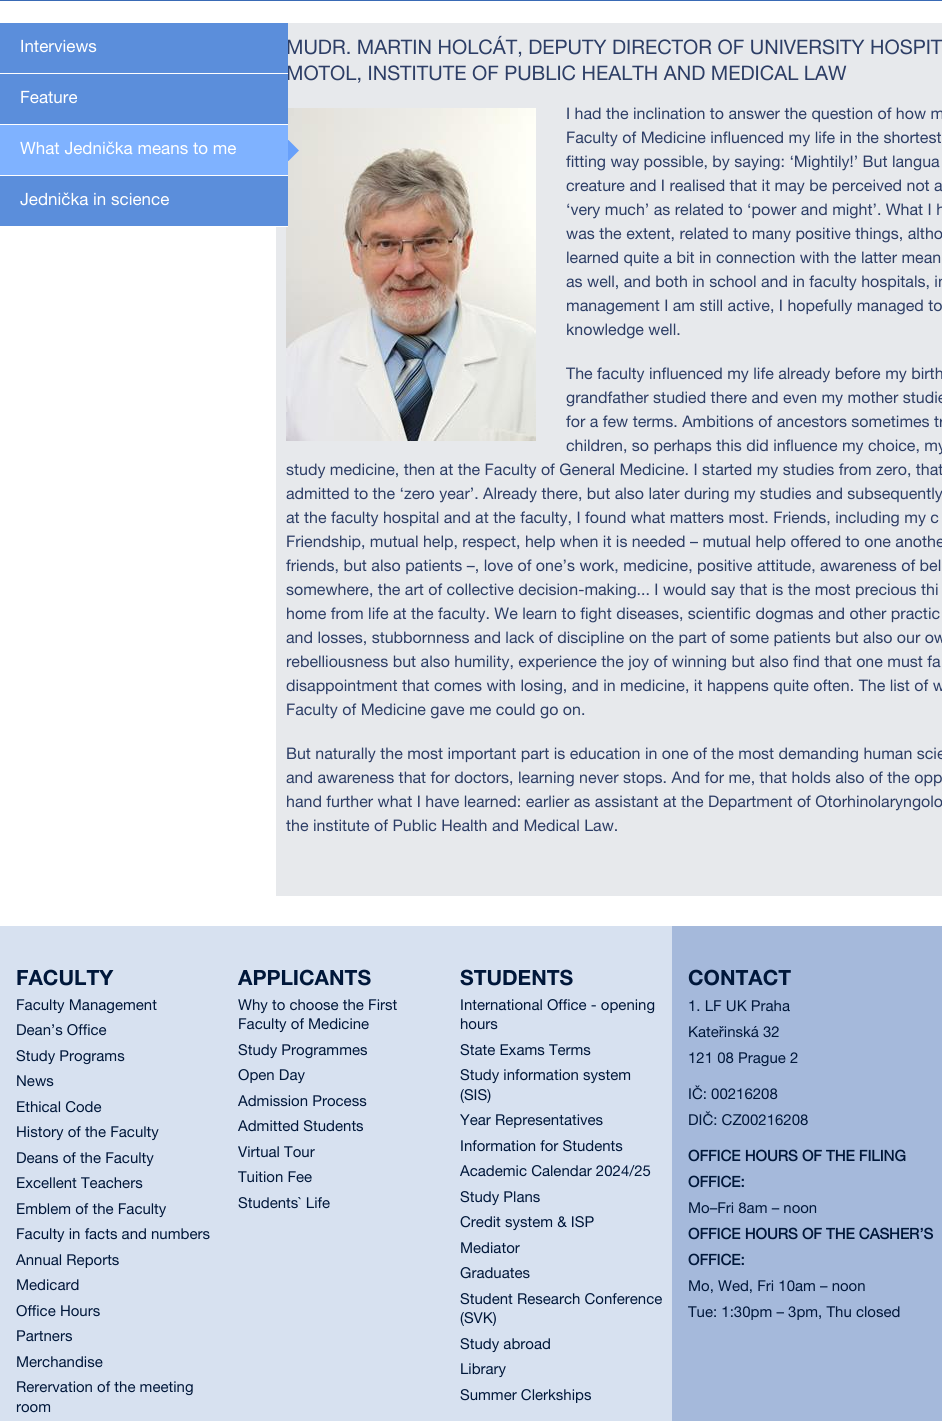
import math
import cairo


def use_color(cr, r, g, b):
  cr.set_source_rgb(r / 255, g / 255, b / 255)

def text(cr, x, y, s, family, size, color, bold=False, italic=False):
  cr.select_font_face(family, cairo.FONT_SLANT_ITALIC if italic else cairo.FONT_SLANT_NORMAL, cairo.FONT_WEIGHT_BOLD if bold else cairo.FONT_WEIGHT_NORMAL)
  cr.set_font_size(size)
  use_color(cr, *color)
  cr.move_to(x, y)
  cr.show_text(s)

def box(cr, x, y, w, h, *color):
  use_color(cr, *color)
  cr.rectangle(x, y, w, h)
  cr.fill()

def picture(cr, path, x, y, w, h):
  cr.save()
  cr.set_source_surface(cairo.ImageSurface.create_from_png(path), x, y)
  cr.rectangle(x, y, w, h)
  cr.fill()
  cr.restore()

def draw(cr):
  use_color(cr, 255, 255, 255)
  cr.paint()
  box(cr, 0, 0, 942, 1, 57, 106, 181)
  box(cr, 276, 23, 666, 873, 231, 233, 236)
  picture(cr, "img_01.png", 286, 108, 250, 333)
  box(cr, 276, 124, 12, 1, 255, 255, 255)
  box(cr, 0, 125, 288, 50, 127, 178, 255)
  box(cr, 276, 175, 12, 1, 255, 255, 255)
  picture(cr, "img_02.png", 288, 140, 11, 21)
  box(cr, 0, 176, 288, 50, 91, 142, 219)
  box(cr, 276, 226, 12, 1, 255, 255, 255)
  box(cr, 0, 926, 672, 495, 215, 225, 240)
  box(cr, 672, 926, 270, 495, 165, 185, 219)
  text(cr, 286, 54, "MUDR. MARTIN HOLCÁT, DEPUTY DIRECTOR OF UNIVERSITY HOSPIT", "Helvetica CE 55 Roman", 20, (45, 62, 102))
  text(cr, 286, 80, "MOTOL, INSTITUTE OF PUBLIC HEALTH AND MEDICAL LAW", "Helvetica CE 55 Roman", 20, (45, 62, 102))
  box(cr, 0, 23, 288, 50, 91, 142, 219)
  text(cr, 20, 52, "Interviews", "Helvetica CE 55 Roman", 17, (255, 255, 255))
  box(cr, 276, 73, 12, 1, 255, 255, 255)
  text(cr, 566, 119, "I had the inclination to answer the question of how m", "Helvetica CE 55 Roman", 16, (45, 62, 102))
  text(cr, 566, 143, "Faculty of Medicine influenced my life in the shortest", "Helvetica CE 55 Roman", 16, (45, 62, 102))
  text(cr, 566, 167, "fitting way possible, by saying: ‘Mightily!’ But langua", "Helvetica CE 55 Roman", 16, (45, 62, 102))
  text(cr, 566, 191, "creature and I realised that it may be perceived not a", "Helvetica CE 55 Roman", 16, (45, 62, 102))
  text(cr, 566, 215, "‘very much’ as related to ‘power and might’. What I h", "Helvetica CE 55 Roman", 16, (45, 62, 102))
  text(cr, 566, 239, "was the extent, related to many positive things, altho", "Helvetica CE 55 Roman", 16, (45, 62, 102))
  text(cr, 566, 263, "learned quite a bit in connection with the latter mean", "Helvetica CE 55 Roman", 16, (45, 62, 102))
  text(cr, 566, 287, "as well, and both in school and in faculty hospitals, in", "Helvetica CE 55 Roman", 16, (45, 62, 102))
  text(cr, 566, 311, "management I am still active, I hopefully managed to", "Helvetica CE 55 Roman", 16, (45, 62, 102))
  text(cr, 566, 335, "knowledge well.", "Helvetica CE 55 Roman", 16, (45, 62, 102))
  text(cr, 566, 379, "The faculty influenced my life already before my birth", "Helvetica CE 55 Roman", 16, (45, 62, 102))
  text(cr, 566, 403, "grandfather studied there and even my mother studie", "Helvetica CE 55 Roman", 16, (45, 62, 102))
  text(cr, 566, 427, "for a few terms. Ambitions of ancestors sometimes tr", "Helvetica CE 55 Roman", 16, (45, 62, 102))
  text(cr, 566, 451, "children, so perhaps this did influence my choice, my", "Helvetica CE 55 Roman", 16, (45, 62, 102))
  text(cr, 286, 475, "study medicine, then at the Faculty of General Medicine. I started my studies from zero, that", "Helvetica CE 55 Roman", 16, (45, 62, 102))
  text(cr, 286, 499, "admitted to the ‘zero year’. Already there, but also later during my studies and subsequently", "Helvetica CE 55 Roman", 16, (45, 62, 102))
  text(cr, 286, 523, "at the faculty hospital and at the faculty, I found what matters most. Friends, including my c", "Helvetica CE 55 Roman", 16, (45, 62, 102))
  text(cr, 286, 547, "Friendship, mutual help, respect, help when it is needed – mutual help offered to one anothe", "Helvetica CE 55 Roman", 16, (45, 62, 102))
  text(cr, 286, 571, "friends, but also patients –, love of one’s work, medicine, positive attitude, awareness of bel", "Helvetica CE 55 Roman", 16, (45, 62, 102))
  text(cr, 286, 595, "somewhere, the art of collective decision-making... I would say that is the most precious thi", "Helvetica CE 55 Roman", 16, (45, 62, 102))
  text(cr, 286, 619, "home from life at the faculty. We learn to fight diseases, scientific dogmas and other practic", "Helvetica CE 55 Roman", 16, (45, 62, 102))
  text(cr, 286, 643, "and losses, stubbornness and lack of discipline on the part of some patients but also our ow", "Helvetica CE 55 Roman", 16, (45, 62, 102))
  text(cr, 286, 667, "rebelliousness but also humility, experience the joy of winning but also find that one must fa", "Helvetica CE 55 Roman", 16, (45, 62, 102))
  text(cr, 286, 691, "disappointment that comes with losing, and in medicine, it happens quite often. The list of w", "Helvetica CE 55 Roman", 16, (45, 62, 102))
  text(cr, 286, 715, "Faculty of Medicine gave me could go on.", "Helvetica CE 55 Roman", 16, (45, 62, 102))
  text(cr, 286, 759, "But naturally the most important part is education in one of the most demanding human scie", "Helvetica CE 55 Roman", 16, (45, 62, 102))
  text(cr, 286, 783, "and awareness that for doctors, learning never stops. And for me, that holds also of the opp", "Helvetica CE 55 Roman", 16, (45, 62, 102))
  text(cr, 286, 807, "hand further what I have learned: earlier as assistant at the Department of Otorhinolaryngolo", "Helvetica CE 55 Roman", 16, (45, 62, 102))
  text(cr, 286, 831, "the institute of Public Health and Medical Law.", "Helvetica CE 55 Roman", 16, (45, 62, 102))
  box(cr, 0, 74, 288, 50, 91, 142, 219)
  text(cr, 20, 103, "Feature", "Helvetica CE 55 Roman", 17, (255, 255, 255))
  text(cr, 20, 154, "What Jednička means to me", "Helvetica CE 55 Roman", 17, (255, 255, 255))
  text(cr, 20, 205, "Jednička in science", "Helvetica CE 55 Roman", 17, (255, 255, 255))
  text(cr, 16, 985, "FACULTY", "Helvetica CE 55 Roman", 21, (0, 23, 58), bold=True)
  text(cr, 16, 1010, "Faculty Management", "Helvetica CE 55 Roman", 15, (0, 23, 58))
  text(cr, 16, 1035, "Dean’s Office", "Helvetica CE 55 Roman", 15, (0, 23, 58))
  text(cr, 16, 1061, "Study Programs", "Helvetica CE 55 Roman", 15, (0, 23, 58))
  text(cr, 16, 1086, "News", "Helvetica CE 55 Roman", 15, (0, 23, 58))
  text(cr, 16, 1112, "Ethical Code", "Helvetica CE 55 Roman", 15, (0, 23, 58))
  text(cr, 16, 1137, "History of the Faculty", "Helvetica CE 55 Roman", 15, (0, 23, 58))
  text(cr, 16, 1163, "Deans of the Faculty", "Helvetica CE 55 Roman", 15, (0, 23, 58))
  text(cr, 16, 1188, "Excellent Teachers", "Helvetica CE 55 Roman", 15, (0, 23, 58))
  text(cr, 16, 1214, "Emblem of the Faculty", "Helvetica CE 55 Roman", 15, (0, 23, 58))
  text(cr, 16, 1239, "Faculty in facts and numbers", "Helvetica CE 55 Roman", 15, (0, 23, 58))
  text(cr, 16, 1265, "Annual Reports", "Helvetica CE 55 Roman", 15, (0, 23, 58))
  text(cr, 16, 1290, "Medicard", "Helvetica CE 55 Roman", 15, (0, 23, 58))
  text(cr, 16, 1316, "Office Hours", "Helvetica CE 55 Roman", 15, (0, 23, 58))
  text(cr, 16, 1341, "Partners", "Helvetica CE 55 Roman", 15, (0, 23, 58))
  text(cr, 16, 1367, "Merchandise", "Helvetica CE 55 Roman", 15, (0, 23, 58))
  text(cr, 16, 1392, "Rerervation of the meeting", "Helvetica CE 55 Roman", 15, (0, 23, 58))
  text(cr, 16, 1412, "room", "Helvetica CE 55 Roman", 15, (0, 23, 58))
  text(cr, 238, 985, "APPLICANTS", "Helvetica CE 55 Roman", 21, (0, 23, 58), bold=True)
  text(cr, 238, 1010, "Why to choose the First", "Helvetica CE 55 Roman", 15, (0, 23, 58))
  text(cr, 238, 1029, "Faculty of Medicine", "Helvetica CE 55 Roman", 15, (0, 23, 58))
  text(cr, 238, 1055, "Study Programmes", "Helvetica CE 55 Roman", 15, (0, 23, 58))
  text(cr, 238, 1080, "Open Day", "Helvetica CE 55 Roman", 15, (0, 23, 58))
  text(cr, 238, 1106, "Admission Process", "Helvetica CE 55 Roman", 15, (0, 23, 58))
  text(cr, 238, 1131, "Admitted Students", "Helvetica CE 55 Roman", 15, (0, 23, 58))
  text(cr, 238, 1157, "Virtual Tour", "Helvetica CE 55 Roman", 15, (0, 23, 58))
  text(cr, 238, 1182, "Tuition Fee", "Helvetica CE 55 Roman", 15, (0, 23, 58))
  text(cr, 238, 1208, "Students` Life", "Helvetica CE 55 Roman", 15, (0, 23, 58))
  text(cr, 460, 985, "STUDENTS", "Helvetica CE 55 Roman", 21, (0, 23, 58), bold=True)
  text(cr, 460, 1010, "International Office - opening", "Helvetica CE 55 Roman", 15, (0, 23, 58))
  text(cr, 460, 1029, "hours", "Helvetica CE 55 Roman", 15, (0, 23, 58))
  text(cr, 460, 1055, "State Exams Terms", "Helvetica CE 55 Roman", 15, (0, 23, 58))
  text(cr, 460, 1080, "Study information system", "Helvetica CE 55 Roman", 15, (0, 23, 58))
  text(cr, 460, 1100, "(SIS)", "Helvetica CE 55 Roman", 15, (0, 23, 58))
  text(cr, 460, 1125, "Year Representatives", "Helvetica CE 55 Roman", 15, (0, 23, 58))
  text(cr, 460, 1151, "Information for Students", "Helvetica CE 55 Roman", 15, (0, 23, 58))
  text(cr, 460, 1176, "Academic Calendar 2024/25", "Helvetica CE 55 Roman", 15, (0, 23, 58))
  text(cr, 460, 1202, "Study Plans", "Helvetica CE 55 Roman", 15, (0, 23, 58))
  text(cr, 460, 1227, "Credit system & ISP", "Helvetica CE 55 Roman", 15, (0, 23, 58))
  text(cr, 460, 1253, "Mediator", "Helvetica CE 55 Roman", 15, (0, 23, 58))
  text(cr, 460, 1278, "Graduates", "Helvetica CE 55 Roman", 15, (0, 23, 58))
  text(cr, 460, 1304, "Student Research Conference", "Helvetica CE 55 Roman", 15, (0, 23, 58))
  text(cr, 460, 1323, "(SVK)", "Helvetica CE 55 Roman", 15, (0, 23, 58))
  text(cr, 460, 1349, "Study abroad", "Helvetica CE 55 Roman", 15, (0, 23, 58))
  text(cr, 460, 1374, "Library", "Helvetica CE 55 Roman", 15, (0, 23, 58))
  text(cr, 460, 1400, "Summer Clerkships", "Helvetica CE 55 Roman", 15, (0, 23, 58))
  text(cr, 688, 985, "CONTACT", "Helvetica CE 55 Roman", 21, (0, 23, 58), bold=True)
  text(cr, 688, 1011, "1. LF UK Praha", "Helvetica CE 55 Roman", 15, (0, 23, 58))
  text(cr, 688, 1037, "Kateřinská 32", "Helvetica CE 55 Roman", 15, (0, 23, 58))
  text(cr, 688, 1063, "121 08 Prague 2", "Helvetica CE 55 Roman", 15, (0, 23, 58))
  text(cr, 688, 1099, "IČ: 00216208", "Helvetica CE 55 Roman", 15, (0, 23, 58))
  text(cr, 688, 1125, "DIČ: CZ00216208", "Helvetica CE 55 Roman", 15, (0, 23, 58))
  text(cr, 688, 1161, "OFFICE HOURS OF THE FILING", "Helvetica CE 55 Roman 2", 15, (0, 23, 58), bold=True)
  text(cr, 688, 1187, "OFFICE:", "Helvetica CE 55 Roman 2", 15, (0, 23, 58), bold=True)
  text(cr, 688, 1213, "Mo–Fri 8am – noon", "Helvetica CE 55 Roman", 15, (0, 23, 58))
  text(cr, 688, 1239, "OFFICE HOURS OF THE CASHER’S", "Helvetica CE 55 Roman 2", 15, (0, 23, 58), bold=True)
  text(cr, 688, 1265, "OFFICE:", "Helvetica CE 55 Roman 2", 15, (0, 23, 58), bold=True)
  text(cr, 688, 1291, "Mo, Wed, Fri 10am – noon", "Helvetica CE 55 Roman", 15, (0, 23, 58))
  text(cr, 688, 1317, "Tue: 1:30pm – 3pm, Thu closed", "Helvetica CE 55 Roman", 15, (0, 23, 58))


surface = cairo.ImageSurface(cairo.FORMAT_RGB24, 942, 1421)
cr = cairo.Context(surface)
options = cairo.FontOptions()
options.set_hint_metrics(cairo.HINT_METRICS_OFF)
options.set_hint_style(cairo.HINT_STYLE_NONE)
cr.set_font_options(options)
cr.set_miter_limit(4)
draw(cr)
surface.write_to_png("out.png")
